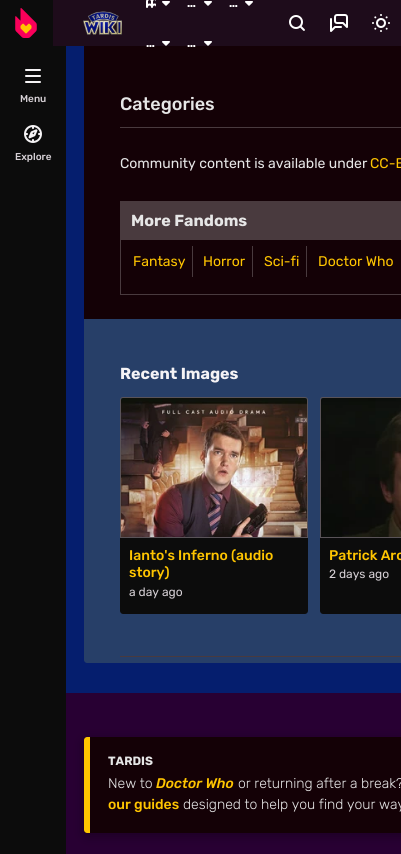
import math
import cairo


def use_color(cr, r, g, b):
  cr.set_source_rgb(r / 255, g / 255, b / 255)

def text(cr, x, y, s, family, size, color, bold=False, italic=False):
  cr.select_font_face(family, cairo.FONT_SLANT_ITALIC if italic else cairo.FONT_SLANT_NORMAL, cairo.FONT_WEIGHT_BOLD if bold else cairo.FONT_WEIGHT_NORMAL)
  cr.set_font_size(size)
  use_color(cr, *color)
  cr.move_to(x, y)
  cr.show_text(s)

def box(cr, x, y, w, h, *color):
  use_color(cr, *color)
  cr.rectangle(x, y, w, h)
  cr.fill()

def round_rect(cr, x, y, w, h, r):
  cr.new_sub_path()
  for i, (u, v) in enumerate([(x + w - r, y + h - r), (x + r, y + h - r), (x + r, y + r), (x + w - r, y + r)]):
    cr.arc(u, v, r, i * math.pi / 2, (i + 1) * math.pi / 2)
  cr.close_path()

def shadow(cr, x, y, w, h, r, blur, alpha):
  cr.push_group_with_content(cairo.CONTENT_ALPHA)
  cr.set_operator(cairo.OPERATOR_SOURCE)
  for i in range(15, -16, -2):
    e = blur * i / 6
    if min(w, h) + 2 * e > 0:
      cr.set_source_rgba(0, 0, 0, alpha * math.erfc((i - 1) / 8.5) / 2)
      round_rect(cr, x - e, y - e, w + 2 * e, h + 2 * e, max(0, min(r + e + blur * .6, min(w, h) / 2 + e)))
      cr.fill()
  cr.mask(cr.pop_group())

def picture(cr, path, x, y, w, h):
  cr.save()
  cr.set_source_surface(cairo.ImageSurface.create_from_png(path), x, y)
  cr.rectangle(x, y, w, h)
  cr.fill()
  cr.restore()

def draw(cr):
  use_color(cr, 5, 30, 110)
  cr.paint()
  box(cr, 53, 0, 348, 46, 30, 12, 27)
  box(cr, 0, 0, 53, 46, 12, 12, 12)
  picture(cr, "img_01.png", 15, 8, 22, 30)
  picture(cr, "img_02.png", 83, 11, 39, 24)
  picture(cr, "img_03.png", 146, 0, 10, 8)
  picture(cr, "img_04.png", 162, 1, 8, 5)
  picture(cr, "img_04.png", 204, 1, 8, 5)
  picture(cr, "img_04.png", 245, 1, 8, 5)
  picture(cr, "img_04.png", 162, 41, 8, 5)
  picture(cr, "img_04.png", 204, 41, 8, 5)
  picture(cr, "img_05.png", 289, 15, 16, 16)
  picture(cr, "img_06.png", 330, 14, 18, 18)
  picture(cr, "img_07.png", 372, 14, 18, 18)
  box(cr, 66, 693, 335, 161, 40, 0, 51)
  use_color(cr, 0, 0, 0)
  shadow(cr, 84, 740, 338, 96, 3, 6, 0.3)
  box(cr, 0, 46, 66, 808, 12, 12, 12)
  picture(cr, "img_08.png", 25, 69, 16, 14)
  picture(cr, "img_09.png", 24, 125, 18, 18)
  box(cr, 84, 46, 317, 273, 20, 1, 6)
  box(cr, 120, 127, 281, 1, 73, 58, 62)
  cr.rectangle(120.5, 201.5, 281, 93)
  cr.set_line_width(1)
  cr.stroke()
  box(cr, 121, 202, 280, 38, 73, 58, 62)
  box(cr, 192, 246, 1, 31, 73, 58, 62)
  box(cr, 252, 246, 1, 31, 73, 58, 62)
  box(cr, 306, 246, 1, 31, 73, 58, 62)
  use_color(cr, 39, 63, 104)
  cr.new_path()
  cr.move_to(84, 319)
  cr.line_to(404, 319)
  cr.line_to(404, 660)
  cr.curve_to(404, 661.5, 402.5, 663, 401, 663)
  cr.line_to(87, 663)
  cr.curve_to(85.5, 663, 84, 661.5, 84, 660)
  cr.close_path()
  cr.fill()
  box(cr, 120, 656, 281, 1, 73, 58, 62)
  cr.new_path()
  cr.move_to(123, 397.5)
  cr.line_to(305, 397.5)
  cr.curve_to(306.5, 397.5, 307.5, 398.5, 307.5, 400)
  cr.line_to(307.5, 537.5)
  cr.line_to(120.5, 537.5)
  cr.line_to(120.5, 400)
  cr.curve_to(120.5, 398.5, 121.5, 397.5, 123, 397.5)
  cr.close_path()
  use_color(cr, 89, 83, 88)
  cr.stroke()
  picture(cr, "img_10.png", 121, 398, 186, 139)
  use_color(cr, 12, 12, 12)
  cr.new_path()
  cr.move_to(120, 538)
  cr.line_to(308, 538)
  cr.line_to(308, 611)
  cr.curve_to(308, 612.5, 306.5, 614, 305, 614)
  cr.line_to(123, 614)
  cr.curve_to(121.5, 614, 120, 612.5, 120, 611)
  cr.close_path()
  cr.fill()
  use_color(cr, 89, 83, 88)
  cr.new_path()
  cr.move_to(323, 397)
  cr.curve_to(321, 397, 320, 398, 320, 400)
  cr.line_to(320, 538)
  cr.line_to(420, 538)
  cr.line_to(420, 537)
  cr.line_to(321, 537)
  cr.line_to(321, 400)
  cr.curve_to(321, 399, 322, 398, 323, 398)
  cr.line_to(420, 398)
  cr.line_to(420, 397)
  cr.close_path()
  cr.fill()
  picture(cr, "img_11.png", 321, 398, 80, 139)
  use_color(cr, 12, 12, 12)
  cr.new_path()
  cr.move_to(320, 538)
  cr.line_to(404, 538)
  cr.line_to(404, 614)
  cr.line_to(323, 614)
  cr.curve_to(321.5, 614, 320, 612.5, 320, 611)
  cr.close_path()
  cr.fill()
  use_color(cr, 20, 1, 6)
  round_rect(cr, 84, 737, 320, 96, 3)
  cr.fill()
  use_color(cr, 255, 197, 0)
  cr.new_path()
  cr.move_to(87, 737)
  cr.line_to(90, 737)
  cr.line_to(90, 833)
  cr.line_to(87, 833)
  cr.curve_to(85.5, 833, 84, 831.5, 84, 830)
  cr.line_to(84, 740)
  cr.curve_to(84, 738.5, 85.5, 737, 87, 737)
  cr.close_path()
  cr.fill()
  text(cr, 187, 7, "…", "Rubik", 12, (255, 255, 255), bold=True)
  text(cr, 229, 7, "…", "Rubik", 12, (255, 255, 255), bold=True)
  text(cr, 146, 47, "…", "Rubik", 12, (255, 255, 255), bold=True)
  text(cr, 187, 47, "…", "Rubik", 12, (255, 255, 255), bold=True)
  text(cr, 20, 102, "Menu", "Rubik Medium", 10, (214, 208, 213))
  text(cr, 15, 160, "Explore", "Rubik Medium", 10, (214, 208, 213))
  text(cr, 120, 110, "Categories", "Rubik Medium", 18, (230, 230, 230))
  text(cr, 120, 168, "Community content is available under", "Rubik", 14, (230, 230, 230))
  text(cr, 370, 168, "CC-B", "Rubik", 14, (255, 197, 0))
  text(cr, 131, 226, "More Fandoms", "Rubik", 16, (230, 230, 230), bold=True)
  text(cr, 133, 266, "Fantasy", "Rubik", 14, (255, 197, 0))
  text(cr, 203, 266, "Horror", "Rubik", 14, (255, 197, 0))
  text(cr, 264, 266, "Sci-fi", "Rubik", 14, (255, 197, 0))
  text(cr, 318, 266, "Doctor Who", "Rubik", 14, (255, 197, 0))
  text(cr, 120, 379, "Recent Images", "Rubik", 16, (245, 243, 245), bold=True)
  text(cr, 129, 560, "Ianto's Inferno (audio", "Rubik Medium", 14, (255, 197, 0))
  text(cr, 129, 577, "story)", "Rubik Medium", 14, (255, 197, 0))
  text(cr, 129, 596, "a day ago", "Rubik", 12, (214, 208, 213))
  text(cr, 329, 560, "Patrick Arc", "Rubik Medium", 14, (255, 197, 0))
  text(cr, 329, 578, "2 days ago", "Rubik", 12, (214, 208, 213))
  text(cr, 108, 765, "TARDIS", "Rubik", 12, (230, 230, 230), bold=True)
  text(cr, 108, 788, "New to", "Rubik Light", 14, (230, 230, 230))
  text(cr, 156, 788, "Doctor Who", "Rubik Medium", 14, (255, 197, 0), italic=True)
  text(cr, 238, 788, "or returning after a break?", "Rubik Light", 14, (230, 230, 230))
  text(cr, 108, 809, "our guides", "Rubik Medium", 14, (255, 197, 0))
  text(cr, 183, 809, "designed to help you find your way", "Rubik Light", 14, (230, 230, 230))


surface = cairo.ImageSurface(cairo.FORMAT_RGB24, 401, 854)
cr = cairo.Context(surface)
options = cairo.FontOptions()
options.set_hint_metrics(cairo.HINT_METRICS_OFF)
options.set_hint_style(cairo.HINT_STYLE_NONE)
cr.set_font_options(options)
cr.set_miter_limit(4)
draw(cr)
surface.write_to_png("out.png")
